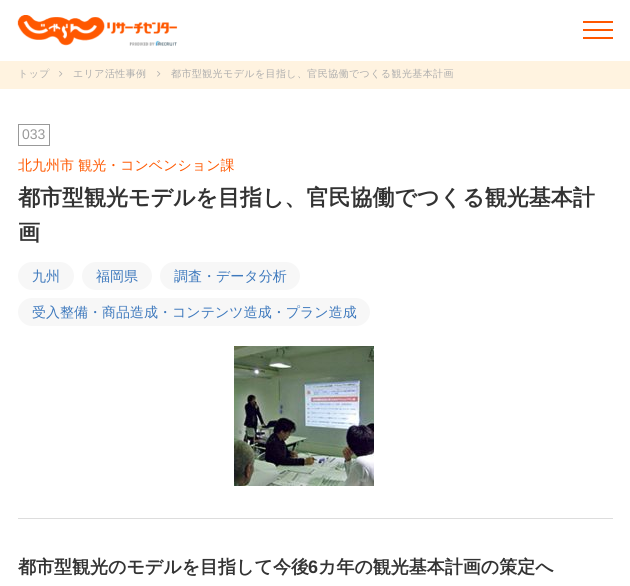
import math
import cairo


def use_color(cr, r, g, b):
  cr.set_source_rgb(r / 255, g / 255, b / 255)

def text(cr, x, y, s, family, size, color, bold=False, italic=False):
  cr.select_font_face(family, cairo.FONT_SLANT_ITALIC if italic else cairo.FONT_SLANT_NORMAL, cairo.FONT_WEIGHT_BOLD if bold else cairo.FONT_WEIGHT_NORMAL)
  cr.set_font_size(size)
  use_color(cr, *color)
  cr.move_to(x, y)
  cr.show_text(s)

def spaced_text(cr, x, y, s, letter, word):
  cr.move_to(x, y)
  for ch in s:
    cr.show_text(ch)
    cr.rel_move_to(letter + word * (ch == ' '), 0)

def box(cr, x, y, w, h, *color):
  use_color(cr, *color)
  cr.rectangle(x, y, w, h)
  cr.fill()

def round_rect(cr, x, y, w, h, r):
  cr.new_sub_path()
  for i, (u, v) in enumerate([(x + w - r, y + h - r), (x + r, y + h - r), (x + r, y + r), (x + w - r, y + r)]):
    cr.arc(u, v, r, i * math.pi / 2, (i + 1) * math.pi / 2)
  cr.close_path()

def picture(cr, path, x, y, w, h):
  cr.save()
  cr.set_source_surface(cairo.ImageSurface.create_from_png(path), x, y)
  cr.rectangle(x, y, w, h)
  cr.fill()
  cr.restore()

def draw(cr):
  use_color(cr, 255, 255, 255)
  cr.paint()
  picture(cr, "img_01.png", 17, 15, 161, 31)
  box(cr, 583, 29, 30, 2, 255, 88, 0)
  box(cr, 583, 21, 30, 2, 255, 88, 0)
  box(cr, 583, 37, 30, 2, 255, 88, 0)
  box(cr, 0, 61, 630, 28, 255, 243, 224)
  picture(cr, "img_02.png", 59, 71, 4, 6)
  picture(cr, "img_02.png", 157, 71, 4, 6)
  box(cr, 18, 518, 595, 1, 221, 221, 221)
  cr.rectangle(18.5, 124.5, 31, 21)
  use_color(cr, 153, 153, 153)
  cr.set_line_width(1)
  cr.stroke()
  use_color(cr, 247, 247, 247)
  round_rect(cr, 18, 262, 56, 28, 14)
  cr.fill()
  round_rect(cr, 82, 262, 70, 28, 14)
  cr.fill()
  round_rect(cr, 160, 262, 140, 28, 14)
  cr.fill()
  round_rect(cr, 18, 298, 352, 28, 14)
  cr.fill()
  picture(cr, "img_03.png", 234, 346, 140, 140)
  cr.select_font_face("WenQuanYi Zen Hei Medium")
  cr.set_font_size(10)
  use_color(cr, 173, 173, 173)
  spaced_text(cr, 18, 77, "トップ", 0.4, 0)
  spaced_text(cr, 73, 77, "エリア活性事例", 0.4, 0)
  spaced_text(cr, 171, 77, "都市型観光モデルを目指し、官民協働でつくる観光基本計画", 0.4, 0)
  text(cr, 22, 139, "033", "Liberation Sans", 14, (153, 153, 153))
  text(cr, 18, 170, "北九州市 観光・コンベンション課", "WenQuanYi Zen Hei Medium", 14, (255, 88, 0))
  text(cr, 18, 205, "都市型観光モデルを目指し、官民協働でつくる観光基本計", "WenQuanYi Zen Hei", 22, (51, 51, 51), bold=True)
  text(cr, 18, 240, "画", "WenQuanYi Zen Hei", 22, (51, 51, 51), bold=True)
  text(cr, 32, 281, "九州", "WenQuanYi Zen Hei Medium", 14, (62, 121, 189))
  text(cr, 96, 281, "福岡県", "WenQuanYi Zen Hei Medium", 14, (62, 121, 189))
  text(cr, 174, 281, "調査・データ分析", "WenQuanYi Zen Hei Medium", 14, (62, 121, 189))
  text(cr, 32, 317, "受入整備・商品造成・コンテンツ造成・プラン造成", "WenQuanYi Zen Hei Medium", 14, (62, 121, 189))
  text(cr, 18, 573, "都市型観光のモデルを目指して今後", "WenQuanYi Zen Hei", 18, (51, 51, 51), bold=True)
  text(cr, 308, 573, "6", "Liberation Sans", 18, (51, 51, 51), bold=True)
  text(cr, 318, 573, "カ年の観光基本計画の策定へ", "WenQuanYi Zen Hei", 18, (51, 51, 51), bold=True)


surface = cairo.ImageSurface(cairo.FORMAT_RGB24, 630, 586)
cr = cairo.Context(surface)
options = cairo.FontOptions()
options.set_hint_metrics(cairo.HINT_METRICS_OFF)
options.set_hint_style(cairo.HINT_STYLE_NONE)
cr.set_font_options(options)
cr.set_miter_limit(4)
draw(cr)
surface.write_to_png("out.png")
